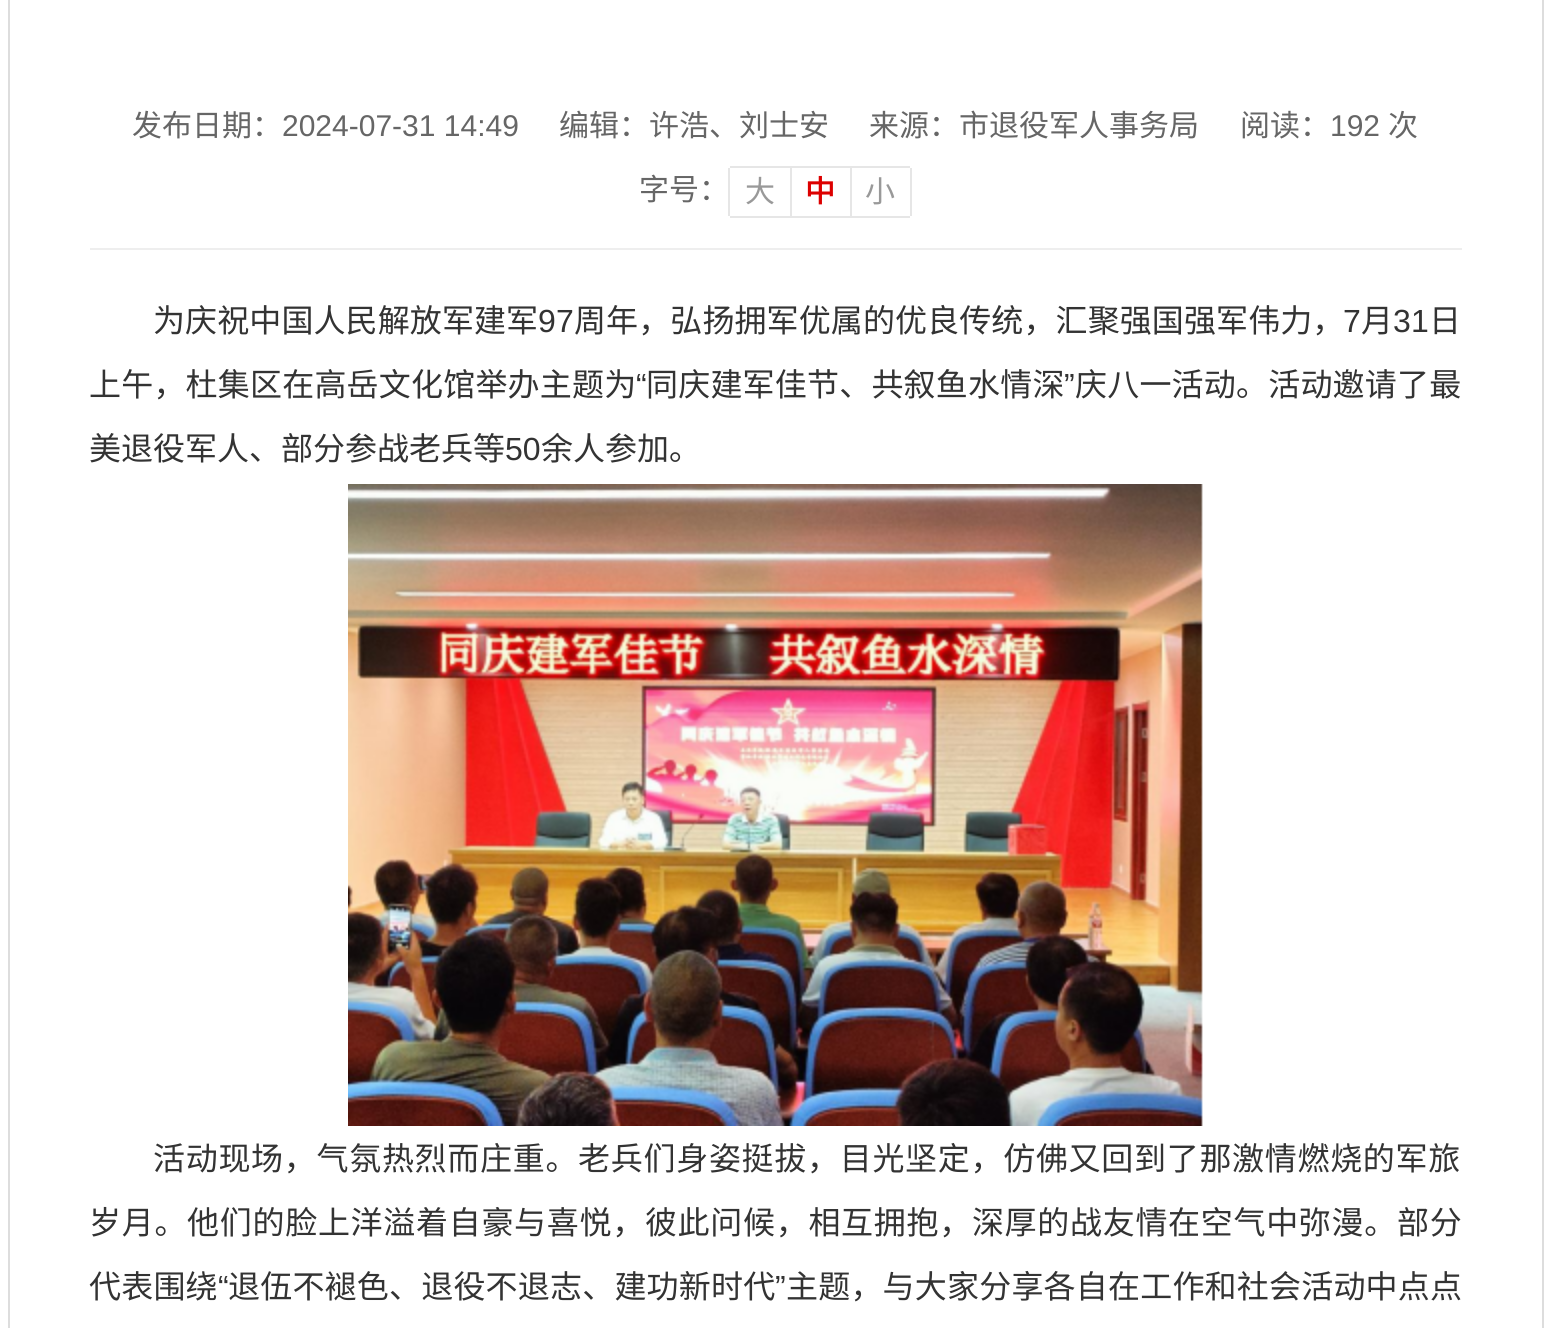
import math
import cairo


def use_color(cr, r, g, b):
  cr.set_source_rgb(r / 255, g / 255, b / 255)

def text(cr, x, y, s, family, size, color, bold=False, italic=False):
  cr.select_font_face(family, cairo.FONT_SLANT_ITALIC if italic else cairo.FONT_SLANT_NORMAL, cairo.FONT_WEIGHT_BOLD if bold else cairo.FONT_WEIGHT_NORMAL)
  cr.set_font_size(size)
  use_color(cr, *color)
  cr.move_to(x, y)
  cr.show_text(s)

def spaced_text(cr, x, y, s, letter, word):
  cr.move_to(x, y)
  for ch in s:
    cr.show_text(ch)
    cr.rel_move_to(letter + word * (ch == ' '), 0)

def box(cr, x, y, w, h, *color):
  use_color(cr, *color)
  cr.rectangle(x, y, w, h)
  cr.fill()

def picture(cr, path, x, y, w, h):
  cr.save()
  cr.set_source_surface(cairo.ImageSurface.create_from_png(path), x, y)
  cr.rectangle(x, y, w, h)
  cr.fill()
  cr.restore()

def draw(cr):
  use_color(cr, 255, 255, 255)
  cr.paint()
  cr.rectangle(9, -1, 1534, 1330)
  use_color(cr, 221, 221, 221)
  cr.stroke()
  box(cr, 90, 248, 1372, 2, 238, 238, 238)
  box(cr, 730, 166, 60, 2, 230, 230, 230)
  box(cr, 730, 216, 60, 2, 230, 230, 230)
  box(cr, 728, 168, 2, 48, 230, 230, 230)
  cr.rectangle(791, 167, 60, 50)
  cr.stroke()
  box(cr, 852, 166, 58, 2, 230, 230, 230)
  box(cr, 910, 168, 2, 48, 230, 230, 230)
  box(cr, 852, 216, 58, 2, 230, 230, 230)
  picture(cr, "img_01.png", 348, 484, 855, 642)
  text(cr, 132, 136, "发布日期：", "Noto Sans CJK SC", 30, (102, 102, 102))
  text(cr, 282, 136, "2024-07-31 14:49", "Liberation Sans", 30, (102, 102, 102))
  text(cr, 559, 136, "编辑：许浩、刘士安", "Noto Sans CJK SC", 30, (102, 102, 102))
  text(cr, 869, 136, "来源：市退役军人事务局", "Noto Sans CJK SC", 30, (102, 102, 102))
  text(cr, 1240, 136, "阅读：", "Noto Sans CJK SC", 30, (102, 102, 102))
  text(cr, 1330, 136, "192", "Liberation Sans", 30, (102, 102, 102))
  text(cr, 1388, 136, "次", "Noto Sans CJK SC", 30, (102, 102, 102))
  text(cr, 639, 200, "字号：", "Noto Sans CJK SC", 30, (102, 102, 102))
  text(cr, 745, 202, "大", "Noto Sans CJK SC", 30, (153, 153, 153))
  text(cr, 805, 202, "中", "Noto Sans CJK SC", 30, (221, 0, 0), bold=True)
  text(cr, 865, 202, "小", "Noto Sans CJK SC", 30, (153, 153, 153))
  cr.set_font_size(32)
  use_color(cr, 51, 51, 51)
  spaced_text(cr, 153, 332, "为庆祝中国人民解放军建军", 0.1, 0)
  cr.select_font_face("Liberation Sans")
  spaced_text(cr, 538, 332, "97", 0.1, 0)
  cr.select_font_face("Noto Sans CJK SC")
  spaced_text(cr, 574, 332, "周年，弘扬拥军优属的优良传统，汇聚强国强军伟力，", 0.1, 0)
  cr.select_font_face("Liberation Sans")
  spaced_text(cr, 1343, 332, "7", 0.1, 0)
  cr.select_font_face("Noto Sans CJK SC")
  spaced_text(cr, 1361, 332, "月", 0.1, 0)
  cr.select_font_face("Liberation Sans")
  spaced_text(cr, 1393, 332, "31", 0.1, 0)
  cr.select_font_face("Noto Sans CJK SC")
  spaced_text(cr, 1429, 332, "日", 0.1, 0)
  spaced_text(cr, 89, 396, "上午，杜集区在高岳文化馆举办主题为", 0.2, 0)
  cr.select_font_face("Liberation Sans")
  spaced_text(cr, 636, 396, "“", 0.2, 0)
  cr.select_font_face("Noto Sans CJK SC")
  spaced_text(cr, 646, 396, "同庆建军佳节、共叙鱼水情深", 0.2, 0)
  cr.select_font_face("Liberation Sans")
  spaced_text(cr, 1064, 396, "”", 0.2, 0)
  cr.select_font_face("Noto Sans CJK SC")
  spaced_text(cr, 1075, 396, "庆八一活动。活动邀请了最", 0.2, 0)
  text(cr, 89, 460, "美退役军人、部分参战老兵等", "Noto Sans CJK SC", 32, (51, 51, 51))
  text(cr, 505, 460, "50", "Liberation Sans", 32, (51, 51, 51))
  text(cr, 541, 460, "余人参加。", "Noto Sans CJK SC", 32, (51, 51, 51))
  spaced_text(cr, 153, 1170, "活动现场，气氛热烈而庄重。老兵们身姿挺拔，目光坚定，仿佛又回到了那激情燃烧的军旅", 0.7, 0)
  spaced_text(cr, 89, 1234, "岁月。他们的脸上洋溢着自豪与喜悦，彼此问候，相互拥抱，深厚的战友情在空气中弥漫。部分", 0.7, 0)
  spaced_text(cr, 89, 1298, "代表围绕", 0.2, 0)
  cr.select_font_face("Liberation Sans")
  spaced_text(cr, 218, 1298, "“", 0.2, 0)
  cr.select_font_face("Noto Sans CJK SC")
  spaced_text(cr, 228, 1298, "退伍不褪色、退役不退志、建功新时代", 0.2, 0)
  cr.select_font_face("Liberation Sans")
  spaced_text(cr, 775, 1298, "”", 0.2, 0)
  cr.select_font_face("Noto Sans CJK SC")
  spaced_text(cr, 786, 1298, "主题，与大家分享各自在工作和社会活动中点点", 0.2, 0)


surface = cairo.ImageSurface(cairo.FORMAT_RGB24, 1550, 1328)
cr = cairo.Context(surface)
options = cairo.FontOptions()
options.set_hint_metrics(cairo.HINT_METRICS_OFF)
options.set_hint_style(cairo.HINT_STYLE_NONE)
cr.set_font_options(options)
cr.set_miter_limit(4)
draw(cr)
surface.write_to_png("out.png")
